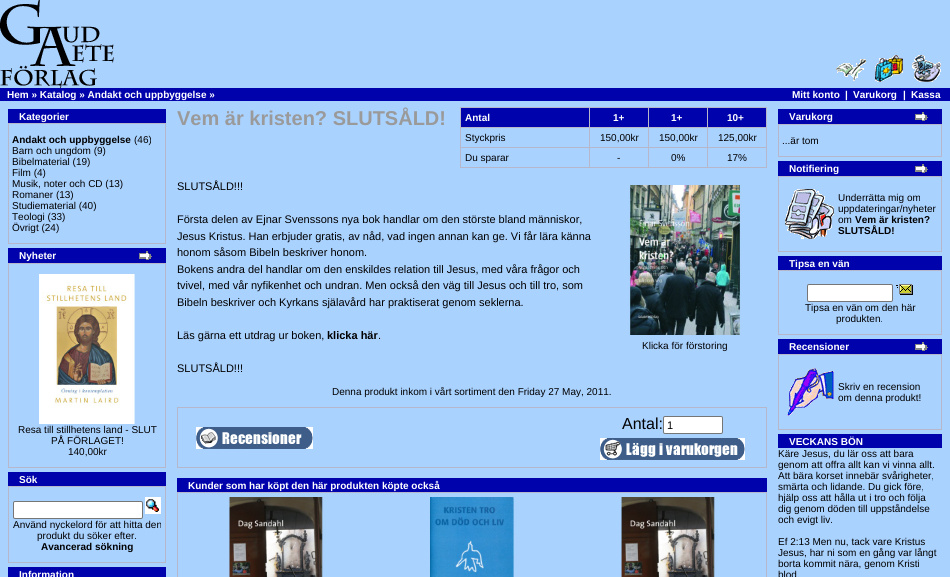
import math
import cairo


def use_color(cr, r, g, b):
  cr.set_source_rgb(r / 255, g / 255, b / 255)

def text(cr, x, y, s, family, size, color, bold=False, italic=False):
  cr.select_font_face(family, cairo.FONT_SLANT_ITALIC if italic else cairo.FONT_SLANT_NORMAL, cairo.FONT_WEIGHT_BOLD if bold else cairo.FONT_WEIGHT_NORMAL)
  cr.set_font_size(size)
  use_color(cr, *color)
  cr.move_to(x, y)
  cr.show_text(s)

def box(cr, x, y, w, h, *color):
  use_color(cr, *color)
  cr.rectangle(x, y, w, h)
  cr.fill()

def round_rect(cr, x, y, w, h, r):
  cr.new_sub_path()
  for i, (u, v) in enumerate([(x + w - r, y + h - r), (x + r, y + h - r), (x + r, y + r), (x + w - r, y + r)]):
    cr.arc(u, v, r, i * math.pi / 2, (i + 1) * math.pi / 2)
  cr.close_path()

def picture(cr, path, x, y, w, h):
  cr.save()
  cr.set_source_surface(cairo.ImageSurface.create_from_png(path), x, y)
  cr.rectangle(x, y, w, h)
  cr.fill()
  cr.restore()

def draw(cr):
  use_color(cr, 170, 210, 255)
  cr.paint()
  picture(cr, "img_01.png", 0, 0, 114, 88)
  picture(cr, "img_02.png", 836, 59, 30, 22)
  picture(cr, "img_03.png", 875, 55, 28, 27)
  picture(cr, "img_04.png", 912, 55, 29, 27)
  box(cr, 0, 88, 950, 13, 0, 2, 172)
  box(cr, 8, 109, 158, 14, 0, 2, 172)
  box(cr, 8, 123, 158, 121, 182, 183, 203)
  box(cr, 9, 124, 156, 119, 170, 210, 255)
  box(cr, 8, 248, 158, 15, 0, 2, 172)
  picture(cr, "img_05.png", 139, 251, 13, 9)
  box(cr, 8, 263, 158, 205, 182, 183, 203)
  box(cr, 9, 264, 156, 203, 170, 210, 255)
  picture(cr, "img_06.png", 39, 274, 96, 150)
  box(cr, 8, 472, 158, 14, 0, 2, 172)
  box(cr, 8, 486, 158, 77, 182, 183, 203)
  box(cr, 9, 487, 156, 75, 170, 210, 255)
  use_color(cr, 255, 255, 255)
  round_rect(cr, 13.5, 501.5, 129, 17, 1.5)
  cr.fill_preserve()
  use_color(cr, 118, 118, 118)
  cr.set_line_width(1)
  cr.stroke()
  picture(cr, "img_07.png", 145, 497, 16, 17)
  box(cr, 8, 567, 158, 10, 0, 2, 172)
  box(cr, 460, 107, 307, 61, 182, 183, 203)
  box(cr, 461, 108, 128, 19, 0, 2, 172)
  box(cr, 590, 108, 58, 19, 0, 2, 172)
  box(cr, 649, 108, 58, 19, 0, 2, 172)
  box(cr, 708, 108, 58, 19, 0, 2, 172)
  box(cr, 461, 128, 128, 19, 170, 210, 255)
  box(cr, 590, 128, 58, 19, 170, 210, 255)
  box(cr, 649, 128, 58, 19, 170, 210, 255)
  box(cr, 708, 128, 58, 19, 170, 210, 255)
  box(cr, 461, 148, 128, 19, 170, 210, 255)
  box(cr, 590, 148, 58, 19, 170, 210, 255)
  box(cr, 649, 148, 58, 19, 170, 210, 255)
  box(cr, 708, 148, 58, 19, 170, 210, 255)
  picture(cr, "img_08.png", 628, 185, 114, 150)
  box(cr, 177, 407, 590, 61, 182, 183, 203)
  box(cr, 178, 408, 588, 59, 170, 210, 255)
  use_color(cr, 255, 255, 255)
  round_rect(cr, 663.5, 416.5, 59, 17, 1.5)
  cr.fill_preserve()
  use_color(cr, 118, 118, 118)
  cr.stroke()
  picture(cr, "img_09.png", 600, 438, 145, 22)
  picture(cr, "img_10.png", 196, 427, 117, 22)
  box(cr, 177, 478, 590, 14, 0, 2, 172)
  box(cr, 177, 492, 590, 85, 182, 183, 203)
  box(cr, 178, 493, 588, 84, 170, 210, 255)
  picture(cr, "img_11.png", 229, 497, 97, 80)
  picture(cr, "img_12.png", 429, 497, 88, 80)
  picture(cr, "img_13.png", 621, 497, 97, 80)
  box(cr, 778, 109, 164, 15, 0, 2, 172)
  picture(cr, "img_05.png", 915, 112, 13, 9)
  box(cr, 778, 124, 164, 33, 182, 183, 203)
  box(cr, 779, 125, 162, 31, 170, 210, 255)
  box(cr, 778, 161, 164, 15, 0, 2, 172)
  picture(cr, "img_05.png", 915, 164, 13, 9)
  box(cr, 778, 176, 164, 76, 182, 183, 203)
  box(cr, 779, 177, 162, 74, 170, 210, 255)
  picture(cr, "img_14.png", 785, 189, 49, 50)
  box(cr, 778, 256, 164, 14, 0, 2, 172)
  box(cr, 778, 270, 164, 65, 182, 183, 203)
  box(cr, 779, 271, 162, 63, 170, 210, 255)
  use_color(cr, 255, 255, 255)
  round_rect(cr, 807.5, 284.5, 85, 17, 1.5)
  cr.fill_preserve()
  use_color(cr, 118, 118, 118)
  cr.stroke()
  picture(cr, "img_15.png", 896, 284, 17, 11)
  box(cr, 778, 339, 164, 15, 0, 2, 172)
  picture(cr, "img_05.png", 915, 342, 13, 9)
  box(cr, 778, 354, 164, 76, 182, 183, 203)
  box(cr, 779, 355, 162, 74, 170, 210, 255)
  picture(cr, "img_16.png", 787, 368, 47, 48)
  box(cr, 778, 434, 164, 14, 0, 2, 172)
  text(cr, 7, 98, "Hem » Katalog » Andakt och uppbyggelse »", "Liberation Sans", 10, (255, 255, 255), bold=True)
  text(cr, 792, 98, "Mitt konto", "Liberation Sans", 10, (255, 255, 255), bold=True)
  text(cr, 845, 98, "|", "Liberation Sans", 10, (255, 255, 255), bold=True)
  text(cr, 853, 98, "Varukorg", "Liberation Sans", 10, (255, 255, 255), bold=True)
  text(cr, 903, 98, "|", "Liberation Sans", 10, (255, 255, 255), bold=True)
  text(cr, 911, 98, "Kassa", "Liberation Sans", 10, (255, 255, 255), bold=True)
  text(cr, 19, 120, "Kategorier", "Liberation Sans", 10, (255, 255, 255), bold=True)
  text(cr, 12, 143, "Andakt och uppbyggelse", "Liberation Sans", 10, (0, 0, 0), bold=True)
  text(cr, 134, 143, "(46)", "Liberation Sans", 10, (0, 0, 0))
  text(cr, 12, 154, "Barn och ungdom (9)", "Liberation Sans", 10, (0, 0, 0))
  text(cr, 12, 165, "Bibelmaterial (19)", "Liberation Sans", 10, (0, 0, 0))
  text(cr, 12, 176, "Film (4)", "Liberation Sans", 10, (0, 0, 0))
  text(cr, 12, 187, "Musik, noter och CD (13)", "Liberation Sans", 10, (0, 0, 0))
  text(cr, 12, 198, "Romaner (13)", "Liberation Sans", 10, (0, 0, 0))
  text(cr, 12, 209, "Studiematerial (40)", "Liberation Sans", 10, (0, 0, 0))
  text(cr, 12, 220, "Teologi (33)", "Liberation Sans", 10, (0, 0, 0))
  text(cr, 12, 231, "Övrigt (24)", "Liberation Sans", 10, (0, 0, 0))
  text(cr, 19, 259, "Nyheter", "Liberation Sans", 10, (255, 255, 255), bold=True)
  text(cr, 18, 433, "Resa till stillhetens land - SLUT", "Liberation Sans", 10, (0, 0, 0))
  text(cr, 51, 444, "PÅ FÖRLAGET!", "Liberation Sans", 10, (0, 0, 0))
  text(cr, 68, 455, "140,00kr", "Liberation Sans", 10, (0, 0, 0))
  text(cr, 19, 483, "Sök", "Liberation Sans", 10, (255, 255, 255), bold=True)
  text(cr, 13, 528, "Använd nyckelord för att hitta den", "Liberation Sans", 10, (0, 0, 0))
  text(cr, 37, 539, "produkt du söker efter.", "Liberation Sans", 10, (0, 0, 0))
  text(cr, 41, 550, "Avancerad sökning", "Liberation Sans", 10, (0, 0, 0), bold=True)
  text(cr, 19, 578, "Information", "Liberation Sans", 10, (255, 255, 255), bold=True)
  text(cr, 177, 125, "Vem är kristen? SLUTSÅLD!", "Liberation Sans", 20, (154, 154, 154), bold=True)
  text(cr, 465, 121, "Antal", "Liberation Sans", 10, (255, 255, 255), bold=True)
  text(cr, 613, 121, "1+", "Liberation Sans", 10, (255, 255, 255), bold=True)
  text(cr, 671, 121, "1+", "Liberation Sans", 10, (255, 255, 255), bold=True)
  text(cr, 727, 121, "10+", "Liberation Sans", 10, (255, 255, 255), bold=True)
  text(cr, 465, 141, "Styckpris", "Liberation Sans", 10, (0, 0, 0))
  text(cr, 600, 141, "150,00kr", "Liberation Sans", 10, (0, 0, 0))
  text(cr, 659, 141, "150,00kr", "Liberation Sans", 10, (0, 0, 0))
  text(cr, 718, 141, "125,00kr", "Liberation Sans", 10, (0, 0, 0))
  text(cr, 465, 161, "Du sparar", "Liberation Sans", 10, (0, 0, 0))
  text(cr, 617, 161, "-", "Liberation Sans", 10, (0, 0, 0))
  text(cr, 671, 161, "0%", "Liberation Sans", 10, (0, 0, 0))
  text(cr, 727, 161, "17%", "Liberation Sans", 10, (0, 0, 0))
  text(cr, 177, 190, "SLUTSÅLD!!!", "Liberation Sans", 11, (0, 0, 0))
  text(cr, 177, 223, "Första delen av Ejnar Svenssons nya bok handlar om den störste bland människor,", "Liberation Sans", 11, (0, 0, 0))
  text(cr, 177, 240, "Jesus Kristus. Han erbjuder gratis, av nåd, vad ingen annan kan ge. Vi får lära känna", "Liberation Sans", 11, (0, 0, 0))
  text(cr, 177, 256, "honom såsom Bibeln beskriver honom.", "Liberation Sans", 11, (0, 0, 0))
  text(cr, 177, 273, "Bokens andra del handlar om den enskildes relation till Jesus, med våra frågor och", "Liberation Sans", 11, (0, 0, 0))
  text(cr, 177, 289, "tvivel, med vår nyfikenhet och undran. Men också den väg till Jesus och till tro, som", "Liberation Sans", 11, (0, 0, 0))
  text(cr, 177, 306, "Bibeln beskriver och Kyrkans själavård har praktiserat genom seklerna.", "Liberation Sans", 11, (0, 0, 0))
  text(cr, 177, 339, "Läs gärna ett utdrag ur boken,", "Liberation Sans", 11, (0, 0, 0))
  text(cr, 327, 339, "klicka här", "Liberation Sans", 11, (0, 0, 0), bold=True)
  text(cr, 378, 339, ".", "Liberation Sans", 11, (0, 0, 0))
  text(cr, 177, 372, "SLUTSÅLD!!!", "Liberation Sans", 11, (0, 0, 0))
  text(cr, 642, 349, "Klicka för förstoring", "Liberation Sans", 10, (0, 0, 0))
  text(cr, 332, 395, "Denna produkt inkom i vårt sortiment den Friday 27 May, 2011.", "Liberation Sans", 10, (0, 0, 0))
  text(cr, 622, 429, "Antal:", "Liberation Sans", 16, (0, 0, 0))
  text(cr, 667, 429, "1", "Liberation Sans", 11, (0, 0, 0))
  text(cr, 188, 489, "Kunder som har köpt den här produkten köpte också", "Liberation Sans", 10, (255, 255, 255), bold=True)
  text(cr, 789, 120, "Varukorg", "Liberation Sans", 10, (255, 255, 255), bold=True)
  text(cr, 782, 144, "...är tom", "Liberation Sans", 10, (0, 0, 0))
  text(cr, 789, 172, "Notifiering", "Liberation Sans", 10, (255, 255, 255), bold=True)
  text(cr, 838, 201, "Underrätta mig om", "Liberation Sans", 10, (0, 0, 0))
  text(cr, 838, 212, "uppdateringar/nyheter", "Liberation Sans", 10, (0, 0, 0))
  text(cr, 838, 223, "om", "Liberation Sans", 10, (0, 0, 0))
  text(cr, 855, 223, "Vem är kristen?", "Liberation Sans", 10, (0, 0, 0), bold=True)
  text(cr, 838, 234, "SLUTSÅLD!", "Liberation Sans", 10, (0, 0, 0), bold=True)
  text(cr, 789, 267, "Tipsa en vän", "Liberation Sans", 10, (255, 255, 255), bold=True)
  text(cr, 805, 311, "Tipsa en vän om den här", "Liberation Sans", 10, (0, 0, 0))
  text(cr, 836, 322, "produkten.", "Liberation Sans", 10, (0, 0, 0))
  text(cr, 789, 350, "Recensioner", "Liberation Sans", 10, (255, 255, 255), bold=True)
  text(cr, 838, 390, "Skriv en recension", "Liberation Sans", 10, (0, 0, 0))
  text(cr, 838, 401, "om denna produkt!", "Liberation Sans", 10, (0, 0, 0))
  text(cr, 789, 445, "VECKANS BÖN", "Liberation Sans", 10, (255, 255, 255), bold=True)
  text(cr, 778, 457, "Käre Jesus, du lär oss att bara", "Liberation Sans", 10, (0, 0, 0))
  text(cr, 778, 468, "genom att offra allt kan vi vinna allt.", "Liberation Sans", 10, (0, 0, 0))
  text(cr, 778, 479, "Att bära korset innebär svårigheter,", "Liberation Sans", 10, (0, 0, 0))
  text(cr, 778, 490, "smärta och lidande. Du gick före,", "Liberation Sans", 10, (0, 0, 0))
  text(cr, 778, 501, "hjälp oss att hålla ut i tro och följa", "Liberation Sans", 10, (0, 0, 0))
  text(cr, 778, 512, "dig genom döden till uppståndelse", "Liberation Sans", 10, (0, 0, 0))
  text(cr, 778, 523, "och evigt liv.", "Liberation Sans", 10, (0, 0, 0))
  text(cr, 778, 545, "Ef 2:13 Men nu, tack vare Kristus", "Liberation Sans", 10, (0, 0, 0))
  text(cr, 778, 556, "Jesus, har ni som en gång var långt", "Liberation Sans", 10, (0, 0, 0))
  text(cr, 778, 567, "borta kommit nära, genom Kristi", "Liberation Sans", 10, (0, 0, 0))
  text(cr, 778, 578, "blod.", "Liberation Sans", 10, (0, 0, 0))


surface = cairo.ImageSurface(cairo.FORMAT_RGB24, 950, 577)
cr = cairo.Context(surface)
options = cairo.FontOptions()
options.set_hint_metrics(cairo.HINT_METRICS_OFF)
options.set_hint_style(cairo.HINT_STYLE_NONE)
cr.set_font_options(options)
cr.set_miter_limit(4)
draw(cr)
surface.write_to_png("out.png")
